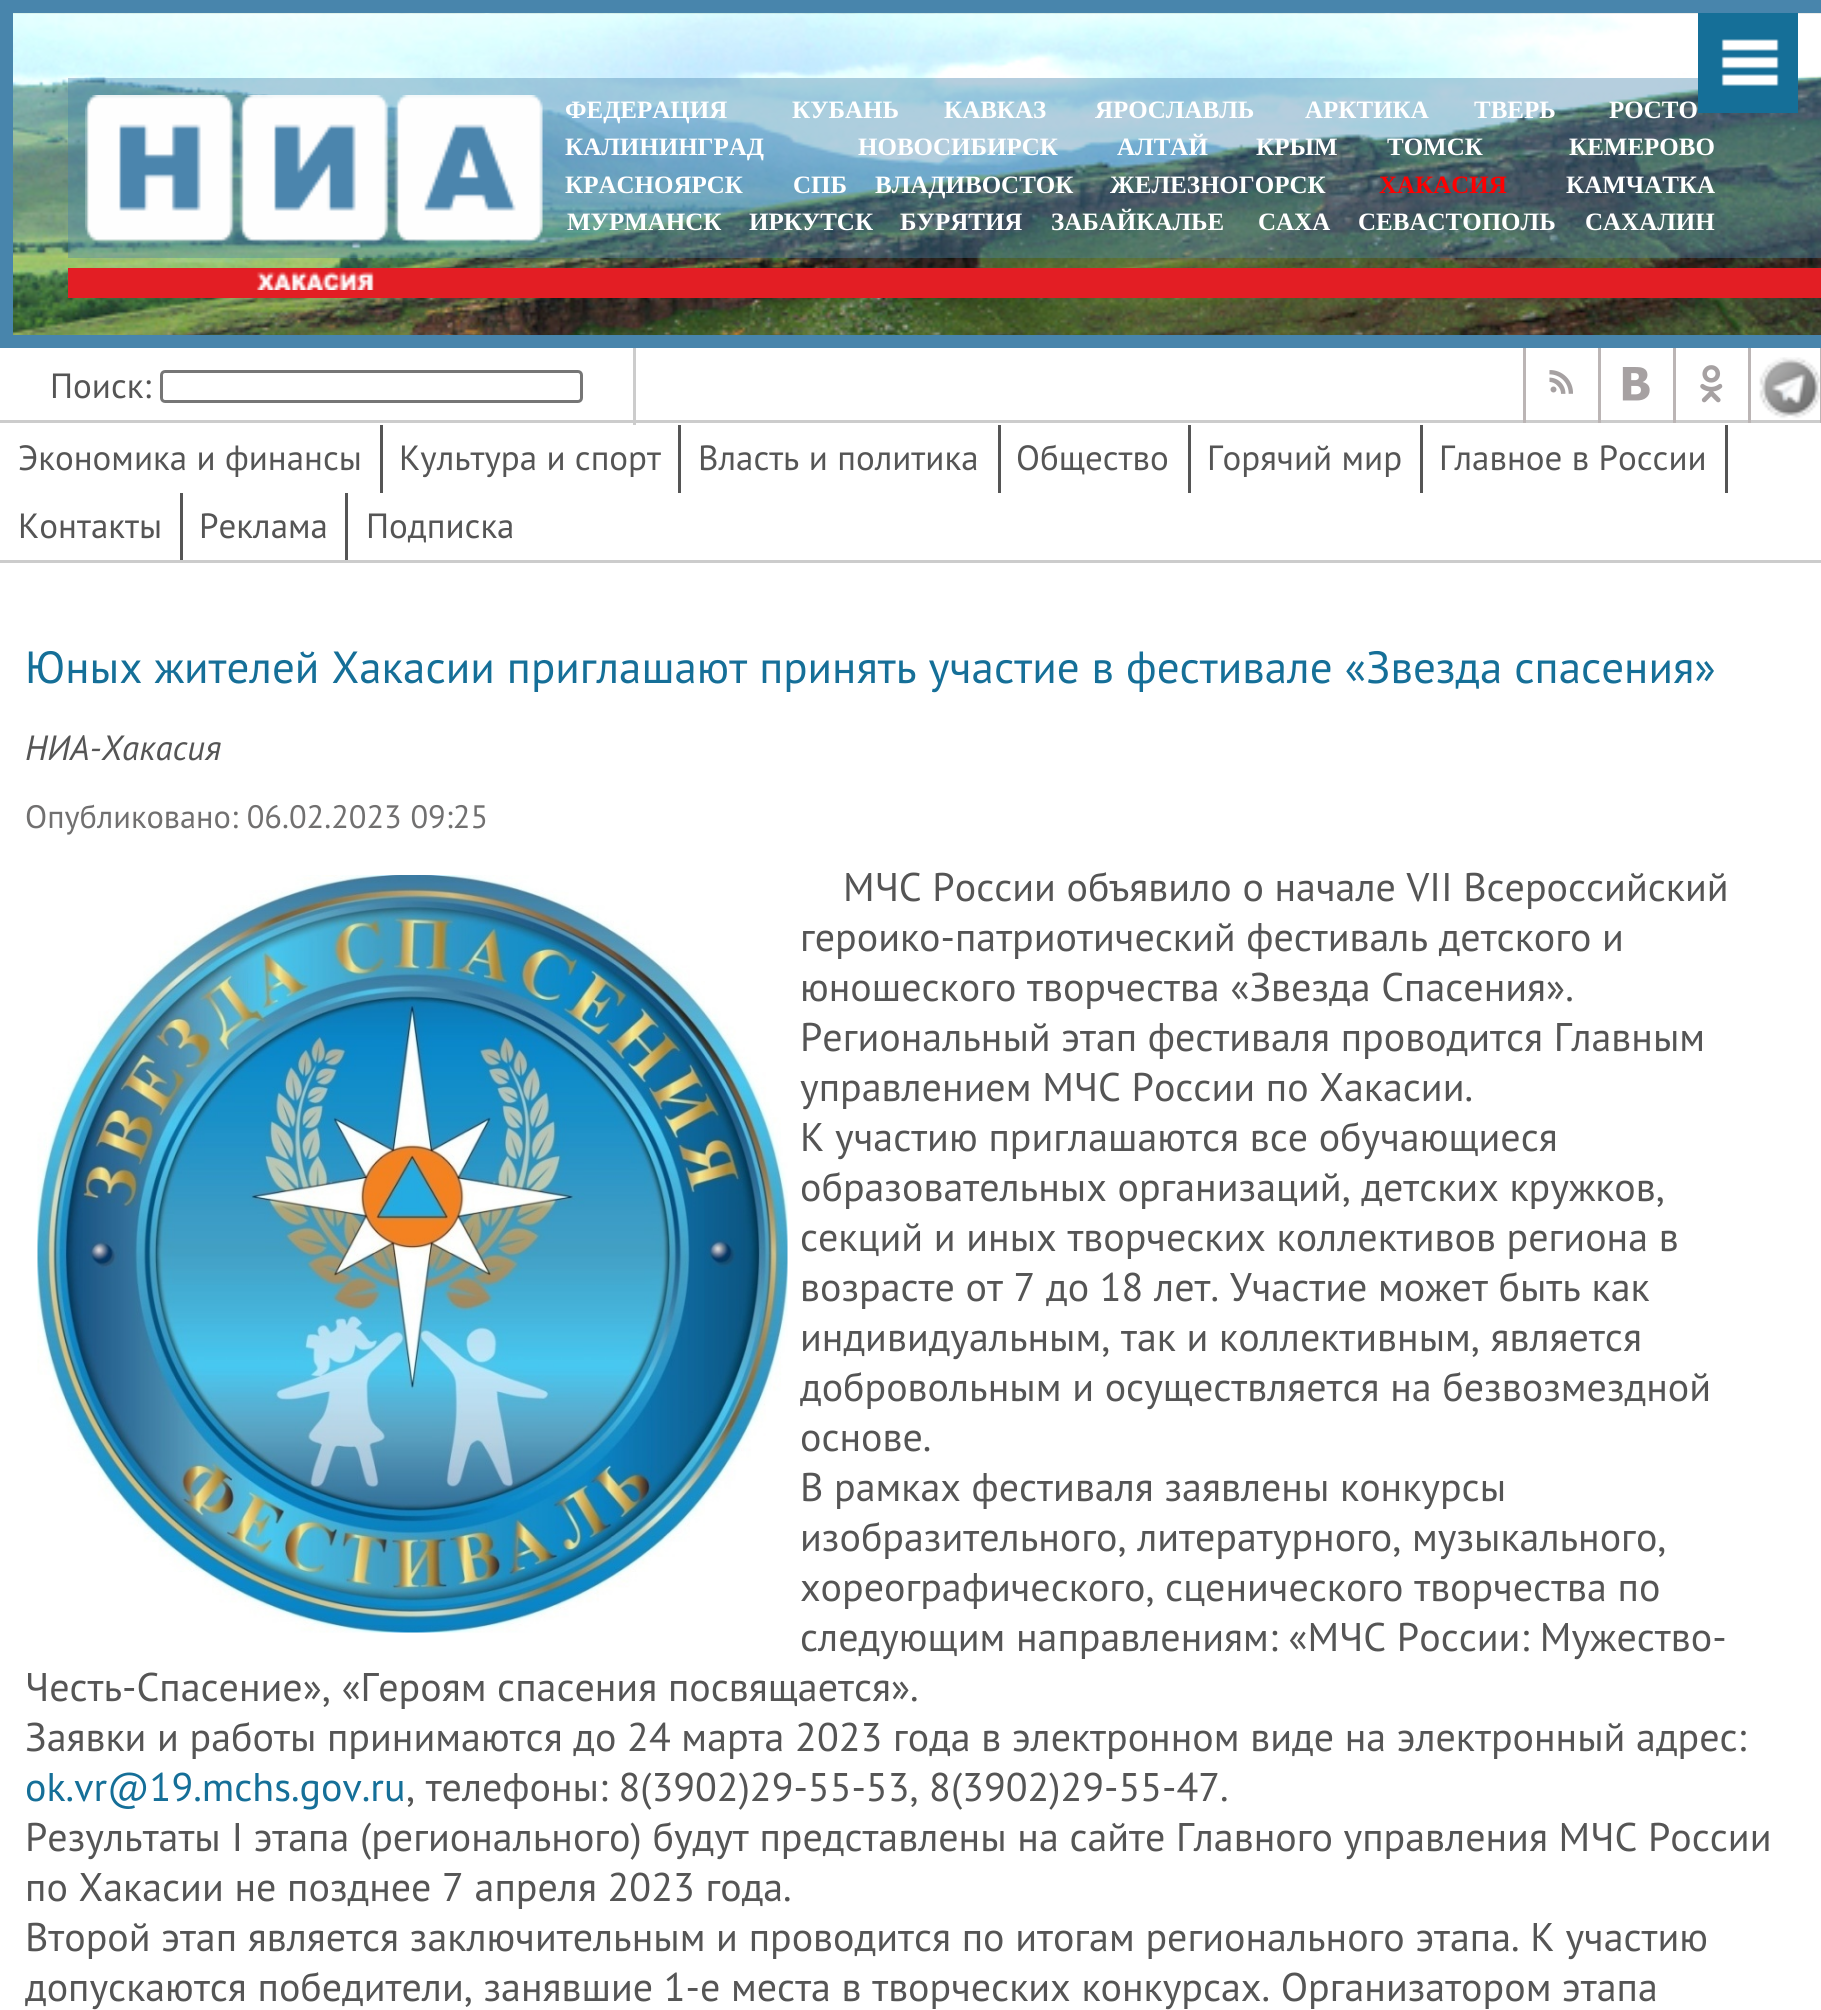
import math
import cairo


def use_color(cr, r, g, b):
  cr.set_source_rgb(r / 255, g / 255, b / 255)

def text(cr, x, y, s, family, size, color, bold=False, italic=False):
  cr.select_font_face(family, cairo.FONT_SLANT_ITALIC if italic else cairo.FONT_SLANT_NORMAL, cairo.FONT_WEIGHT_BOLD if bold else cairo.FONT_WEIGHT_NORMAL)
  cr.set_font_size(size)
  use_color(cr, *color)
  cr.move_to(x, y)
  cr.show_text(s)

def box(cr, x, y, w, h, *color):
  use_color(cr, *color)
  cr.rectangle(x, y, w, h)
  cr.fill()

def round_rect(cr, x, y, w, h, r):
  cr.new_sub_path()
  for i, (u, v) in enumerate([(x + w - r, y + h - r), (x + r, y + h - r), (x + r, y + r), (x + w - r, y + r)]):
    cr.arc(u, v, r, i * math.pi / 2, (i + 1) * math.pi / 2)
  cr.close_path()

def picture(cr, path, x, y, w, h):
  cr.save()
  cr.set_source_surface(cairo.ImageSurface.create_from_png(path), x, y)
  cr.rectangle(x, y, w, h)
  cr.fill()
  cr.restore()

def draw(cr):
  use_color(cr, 255, 255, 255)
  cr.paint()
  picture(cr, "img_01.png", 13, 13, 1808, 322)
  box(cr, 13, 0, 1808, 13, 72, 133, 172)
  box(cr, 13, 335, 1808, 13, 72, 133, 172)
  box(cr, 0, 0, 13, 348, 72, 133, 172)
  cr.set_source_rgba(0.282, 0.522, 0.675, 0.4)
  cr.rectangle(68, 78, 1753, 180)
  cr.fill()
  box(cr, 1698, 13, 100, 100, 21, 111, 152)
  picture(cr, "img_02.png", 1721, 39, 58, 47)
  box(cr, 68, 268, 1753, 30, 227, 30, 36)
  picture(cr, "img_03.png", 85, 95, 458, 195)
  box(cr, 0, 420, 1821, 3, 204, 204, 204)
  box(cr, 633, 348, 3, 77, 204, 204, 204)
  round_rect(cr, 161.5, 371.5, 420, 30, 3.5)
  use_color(cr, 118, 118, 118)
  cr.set_line_width(3)
  cr.stroke()
  picture(cr, "img_04.png", 1549, 370, 24, 24)
  box(cr, 1523, 348, 3, 75, 187, 181, 181)
  picture(cr, "img_05.png", 1622, 367, 28, 34)
  box(cr, 1598, 348, 3, 75, 187, 181, 181)
  picture(cr, "img_06.png", 1700, 365, 23, 38)
  box(cr, 1673, 348, 3, 75, 187, 181, 181)
  picture(cr, "img_07.png", 1759, 357, 61, 62)
  box(cr, 1820, 348, 1, 75, 187, 181, 181)
  box(cr, 1748, 348, 3, 75, 187, 181, 181)
  box(cr, 0, 560, 1821, 3, 204, 204, 204)
  box(cr, 380, 425, 3, 68, 85, 85, 85)
  box(cr, 678, 425, 3, 68, 85, 85, 85)
  box(cr, 998, 425, 3, 68, 85, 85, 85)
  box(cr, 1188, 425, 3, 68, 85, 85, 85)
  box(cr, 1420, 425, 3, 68, 85, 85, 85)
  box(cr, 1725, 425, 3, 68, 85, 85, 85)
  box(cr, 180, 493, 3, 67, 85, 85, 85)
  box(cr, 345, 493, 3, 67, 85, 85, 85)
  picture(cr, "img_08.png", 37, 875, 751, 758)
  text(cr, 565, 118, "ФЕДЕРАЦИЯ", "Liberation Serif", 25, (255, 255, 255), bold=True)
  text(cr, 792, 118, "КУБАНЬ", "Liberation Serif", 25, (255, 255, 255), bold=True)
  text(cr, 944, 118, "КАВКАЗ", "Liberation Serif", 25, (255, 255, 255), bold=True)
  text(cr, 1095, 118, "ЯРОСЛАВЛЬ", "Liberation Serif", 25, (255, 255, 255), bold=True)
  text(cr, 1305, 118, "АРКТИКА", "Liberation Serif", 25, (255, 255, 255), bold=True)
  text(cr, 1474, 118, "ТВЕРЬ", "Liberation Serif", 25, (255, 255, 255), bold=True)
  text(cr, 1609, 118, "РОСТО", "Liberation Serif", 25, (255, 255, 255), bold=True)
  text(cr, 565, 155, "КАЛИНИНГРАД", "Liberation Serif", 25, (255, 255, 255), bold=True)
  text(cr, 858, 155, "НОВОСИБИРСК", "Liberation Serif", 25, (255, 255, 255), bold=True)
  text(cr, 1117, 155, "АЛТАЙ", "Liberation Serif", 25, (255, 255, 255), bold=True)
  text(cr, 1256, 155, "КРЫМ", "Liberation Serif", 25, (255, 255, 255), bold=True)
  text(cr, 1387, 155, "ТОМСК", "Liberation Serif", 25, (255, 255, 255), bold=True)
  text(cr, 1569, 155, "КЕМЕРОВО", "Liberation Serif", 25, (255, 255, 255), bold=True)
  text(cr, 565, 193, "КРАСНОЯРСК", "Liberation Serif", 25, (255, 255, 255), bold=True)
  text(cr, 793, 193, "СПБ", "Liberation Serif", 25, (255, 255, 255), bold=True)
  text(cr, 875, 193, "ВЛАДИВОСТОК", "Liberation Serif", 25, (255, 255, 255), bold=True)
  text(cr, 1110, 193, "ЖЕЛЕЗНОГОРСК", "Liberation Serif", 25, (255, 255, 255), bold=True)
  text(cr, 1379, 193, "ХАКАСИЯ", "Liberation Serif", 25, (255, 0, 0), bold=True)
  text(cr, 1566, 193, "КАМЧАТКА", "Liberation Serif", 25, (255, 255, 255), bold=True)
  text(cr, 567, 230, "МУРМАНСК", "Liberation Serif", 25, (255, 255, 255), bold=True)
  text(cr, 749, 230, "ИРКУТСК", "Liberation Serif", 25, (255, 255, 255), bold=True)
  text(cr, 900, 230, "БУРЯТИЯ", "Liberation Serif", 25, (255, 255, 255), bold=True)
  text(cr, 1051, 230, "ЗАБАЙКАЛЬЕ", "Liberation Serif", 25, (255, 255, 255), bold=True)
  text(cr, 1258, 230, "САХА", "Liberation Serif", 25, (255, 255, 255), bold=True)
  text(cr, 1358, 230, "СЕВАСТОПОЛЬ", "Liberation Serif", 25, (255, 255, 255), bold=True)
  text(cr, 1585, 230, "САХАЛИН", "Liberation Serif", 25, (255, 255, 255), bold=True)
  text(cr, 50, 398, "Поиск:", "PT Sans", 35, (85, 85, 85))
  text(cr, 18, 470, "Экономика и финансы", "PT Sans", 35, (85, 85, 85))
  text(cr, 399, 470, "Культура и спорт", "PT Sans", 35, (85, 85, 85))
  text(cr, 698, 470, "Власть и политика", "PT Sans", 35, (85, 85, 85))
  text(cr, 1016, 470, "Общество", "PT Sans", 35, (85, 85, 85))
  text(cr, 1207, 470, "Горячий мир", "PT Sans", 35, (85, 85, 85))
  text(cr, 1439, 470, "Главное в России", "PT Sans", 35, (85, 85, 85))
  text(cr, 18, 538, "Контакты", "PT Sans", 35, (85, 85, 85))
  text(cr, 199, 538, "Реклама", "PT Sans", 35, (85, 85, 85))
  text(cr, 366, 538, "Подписка", "PT Sans", 35, (85, 85, 85))
  text(cr, 25, 683, "Юных жителей Хакасии приглашают принять участие в фестивале «Звезда спасения»", "PT Sans", 45, (21, 111, 152))
  text(cr, 25, 760, "НИА-Хакасия", "PT Sans", 35, (85, 85, 85), italic=True)
  text(cr, 25, 828, "Опубликовано: 06.02.2023 09:25", "PT Sans", 32.4, (113, 112, 112))
  text(cr, 843, 901, "МЧС России объявило о начале VII Всероссийский", "PT Sans", 40, (85, 85, 85))
  text(cr, 800, 951, "героико-патриотический фестиваль детского и", "PT Sans", 40, (85, 85, 85))
  text(cr, 800, 1001, "юношеского творчества «Звезда Спасения».", "PT Sans", 40, (85, 85, 85))
  text(cr, 800, 1051, "Региональный этап фестиваля проводится Главным", "PT Sans", 40, (85, 85, 85))
  text(cr, 800, 1101, "управлением МЧС России по Хакасии.", "PT Sans", 40, (85, 85, 85))
  text(cr, 800, 1151, "К участию приглашаются все обучающиеся", "PT Sans", 40, (85, 85, 85))
  text(cr, 800, 1201, "образовательных организаций, детских кружков,", "PT Sans", 40, (85, 85, 85))
  text(cr, 800, 1251, "секций и иных творческих коллективов региона в", "PT Sans", 40, (85, 85, 85))
  text(cr, 800, 1301, "возрасте от 7 до 18 лет. Участие может быть как", "PT Sans", 40, (85, 85, 85))
  text(cr, 800, 1351, "индивидуальным, так и коллективным, является", "PT Sans", 40, (85, 85, 85))
  text(cr, 800, 1401, "добровольным и осуществляется на безвозмездной", "PT Sans", 40, (85, 85, 85))
  text(cr, 800, 1451, "основе.", "PT Sans", 40, (85, 85, 85))
  text(cr, 800, 1501, "В рамках фестиваля заявлены конкурсы", "PT Sans", 40, (85, 85, 85))
  text(cr, 800, 1551, "изобразительного, литературного, музыкального,", "PT Sans", 40, (85, 85, 85))
  text(cr, 800, 1601, "хореографического, сценического творчества по", "PT Sans", 40, (85, 85, 85))
  text(cr, 800, 1651, "следующим направлениям: «МЧС России: Мужество-", "PT Sans", 40, (85, 85, 85))
  text(cr, 25, 1701, "Честь-Спасение», «Героям спасения посвящается».", "PT Sans", 40, (85, 85, 85))
  text(cr, 25, 1751, "Заявки и работы принимаются до 24 марта 2023 года в электронном виде на электронный адрес:", "PT Sans", 40, (85, 85, 85))
  text(cr, 25, 1801, "ok.vr@19.mchs.gov.ru", "PT Sans", 40, (21, 111, 152))
  text(cr, 406, 1801, ", телефоны: 8(3902)29-55-53, 8(3902)29-55-47.", "PT Sans", 40, (85, 85, 85))
  text(cr, 25, 1851, "Результаты I этапа (регионального) будут представлены на сайте Главного управления МЧС России", "PT Sans", 40, (85, 85, 85))
  text(cr, 25, 1901, "по Хакасии не позднее 7 апреля 2023 года.", "PT Sans", 40, (85, 85, 85))
  text(cr, 25, 1951, "Второй этап является заключительным и проводится по итогам регионального этапа. К участию", "PT Sans", 40, (85, 85, 85))
  text(cr, 25, 2001, "допускаются победители, занявшие 1-е места в творческих конкурсах. Организатором этапа", "PT Sans", 40, (85, 85, 85))


surface = cairo.ImageSurface(cairo.FORMAT_RGB24, 1821, 2010)
cr = cairo.Context(surface)
options = cairo.FontOptions()
options.set_hint_metrics(cairo.HINT_METRICS_OFF)
options.set_hint_style(cairo.HINT_STYLE_NONE)
cr.set_font_options(options)
cr.set_miter_limit(4)
draw(cr)
surface.write_to_png("out.png")
